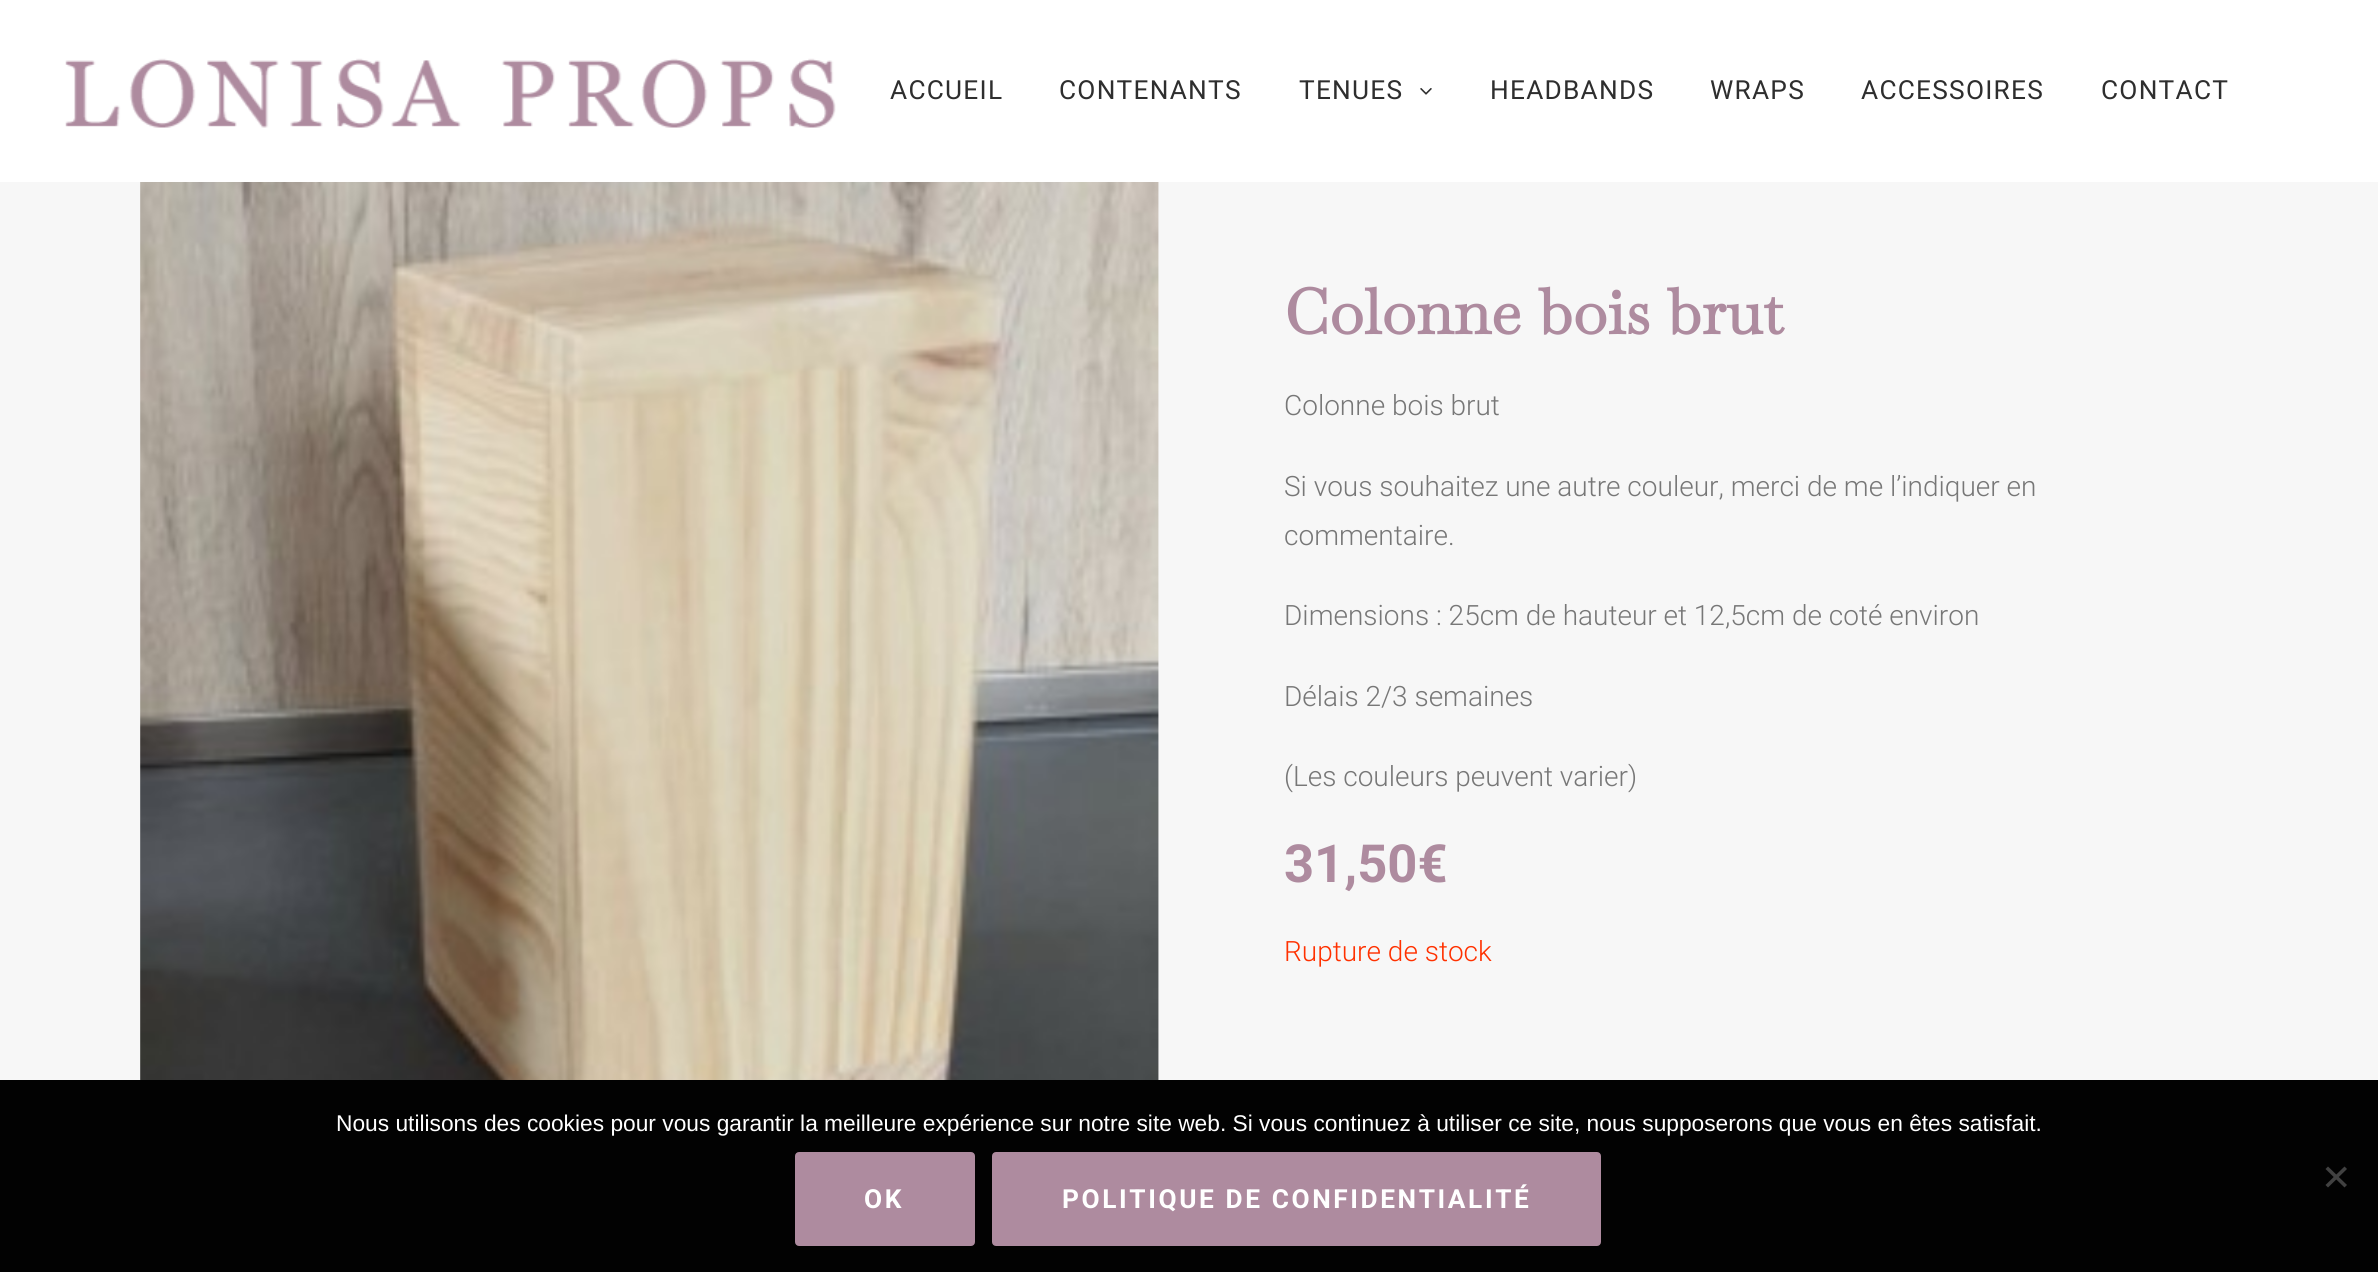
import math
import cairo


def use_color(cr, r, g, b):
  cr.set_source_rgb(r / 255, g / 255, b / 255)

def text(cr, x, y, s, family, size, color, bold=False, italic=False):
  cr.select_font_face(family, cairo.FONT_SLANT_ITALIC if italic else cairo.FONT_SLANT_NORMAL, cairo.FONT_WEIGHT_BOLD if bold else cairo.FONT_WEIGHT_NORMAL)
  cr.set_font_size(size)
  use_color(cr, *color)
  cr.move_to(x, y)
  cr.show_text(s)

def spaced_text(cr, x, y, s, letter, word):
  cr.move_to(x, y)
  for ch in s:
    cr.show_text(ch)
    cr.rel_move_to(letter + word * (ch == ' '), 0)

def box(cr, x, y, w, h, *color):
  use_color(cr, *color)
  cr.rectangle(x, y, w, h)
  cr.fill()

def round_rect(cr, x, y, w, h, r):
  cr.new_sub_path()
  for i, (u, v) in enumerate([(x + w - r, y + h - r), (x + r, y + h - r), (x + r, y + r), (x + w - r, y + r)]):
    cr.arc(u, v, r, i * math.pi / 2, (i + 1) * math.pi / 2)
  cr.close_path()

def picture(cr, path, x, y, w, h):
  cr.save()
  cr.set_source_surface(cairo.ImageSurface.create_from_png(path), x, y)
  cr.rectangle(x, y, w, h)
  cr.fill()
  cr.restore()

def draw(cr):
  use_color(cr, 247, 247, 247)
  cr.paint()
  box(cr, 0, 0, 2378, 182, 255, 255, 255)
  picture(cr, "img_01.png", 65, 58, 771, 70)
  picture(cr, "img_02.png", 1420, 88, 12, 7)
  picture(cr, "img_03.png", 140, 182, 1019, 898)
  box(cr, 0, 1080, 2378, 192, 2, 2, 2)
  use_color(cr, 65, 65, 65)
  cr.new_path()
  cr.move_to(2344.5, 1166.5)
  cr.line_to(2347, 1169)
  cr.line_to(2328, 1187.5)
  cr.line_to(2325.5, 1185)
  cr.close_path()
  cr.fill()
  cr.new_path()
  cr.move_to(2325.5, 1169)
  cr.line_to(2328, 1166.5)
  cr.line_to(2347, 1185)
  cr.line_to(2344.5, 1187.5)
  cr.close_path()
  cr.fill()
  use_color(cr, 174, 139, 159)
  round_rect(cr, 796, 1153, 178, 92, 3)
  cr.fill_preserve()
  cr.stroke()
  round_rect(cr, 993, 1153, 607, 92, 3)
  cr.fill_preserve()
  cr.stroke()
  cr.select_font_face("Roboto")
  cr.set_font_size(26.25)
  use_color(cr, 46, 46, 46)
  spaced_text(cr, 890, 99, "ACCUEIL", 1.25, 0)
  spaced_text(cr, 1059, 99, "CONTENANTS", 1.25, 0)
  spaced_text(cr, 1299, 99, "TENUES", 1.25, 0)
  spaced_text(cr, 1490, 99, "HEADBANDS", 1.25, 0)
  spaced_text(cr, 1710, 99, "WRAPS", 1.25, 0)
  spaced_text(cr, 1861, 99, "ACCESSOIRES", 1.25, 0)
  spaced_text(cr, 2101, 99, "CONTACT", 1.25, 0)
  text(cr, 1284, 334, "Colonne bois brut", "Baskervville", 63, (174, 139, 159), bold=True)
  text(cr, 1284, 415, "Colonne bois brut", "Roboto Light", 28, (119, 119, 119))
  text(cr, 1284, 496, "Si vous souhaitez une autre couleur, merci de me l’indiquer en", "Roboto Light", 28, (119, 119, 119))
  text(cr, 1284, 545, "commentaire.", "Roboto Light", 28, (119, 119, 119))
  text(cr, 1284, 625, "Dimensions : 25cm de hauteur et 12,5cm de coté environ", "Roboto Light", 28, (119, 119, 119))
  text(cr, 1284, 706, "Délais 2/3 semaines", "Roboto Light", 28, (119, 119, 119))
  text(cr, 1284, 786, "(Les couleurs peuvent varier)", "Roboto Light", 28, (119, 119, 119))
  text(cr, 1284, 882, "31,50€", "Roboto", 52.5, (174, 139, 159), bold=True)
  text(cr, 1284, 961, "Rupture de stock", "Roboto Light", 28, (255, 49, 0))
  text(cr, 336, 1131, "Nous utilisons des cookies pour vous garantir la meilleure expérience sur notre site web. Si vous continuez à utiliser ce site, nous supposerons que vous en êtes satisfait.", "Liberation Sans", 22.75, (255, 255, 255))
  cr.select_font_face("Roboto", cairo.FONT_SLANT_NORMAL, cairo.FONT_WEIGHT_BOLD)
  cr.set_font_size(26.25)
  spaced_text(cr, 864, 1208, "OK", 2.6, 0)
  spaced_text(cr, 1062, 1208, "POLITIQUE DE CONFIDENTIALITÉ", 2.6, 0)


surface = cairo.ImageSurface(cairo.FORMAT_RGB24, 2378, 1272)
cr = cairo.Context(surface)
options = cairo.FontOptions()
options.set_hint_metrics(cairo.HINT_METRICS_OFF)
options.set_hint_style(cairo.HINT_STYLE_NONE)
cr.set_font_options(options)
cr.set_miter_limit(4)
draw(cr)
surface.write_to_png("out.png")
